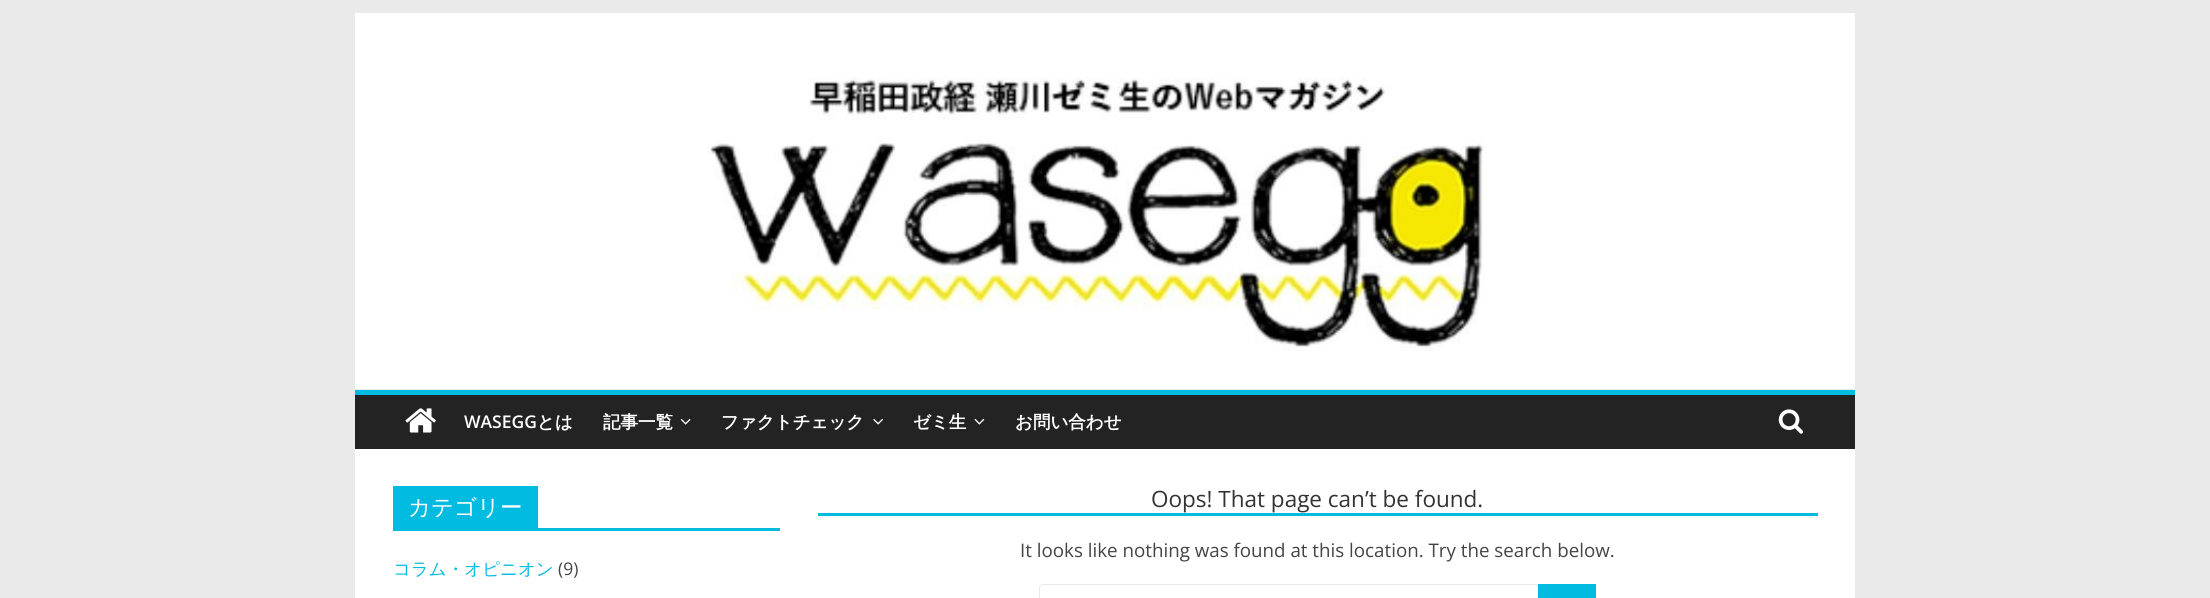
import math
import cairo


def use_color(cr, r, g, b):
  cr.set_source_rgb(r / 255, g / 255, b / 255)

def text(cr, x, y, s, family, size, color, bold=False, italic=False):
  cr.select_font_face(family, cairo.FONT_SLANT_ITALIC if italic else cairo.FONT_SLANT_NORMAL, cairo.FONT_WEIGHT_BOLD if bold else cairo.FONT_WEIGHT_NORMAL)
  cr.set_font_size(size)
  use_color(cr, *color)
  cr.move_to(x, y)
  cr.show_text(s)

def box(cr, x, y, w, h, *color):
  use_color(cr, *color)
  cr.rectangle(x, y, w, h)
  cr.fill()

def round_rect(cr, x, y, w, h, r):
  cr.new_sub_path()
  for i, (u, v) in enumerate([(x + w - r, y + h - r), (x + r, y + h - r), (x + r, y + r), (x + w - r, y + r)]):
    cr.arc(u, v, r, i * math.pi / 2, (i + 1) * math.pi / 2)
  cr.close_path()

def picture(cr, path, x, y, w, h):
  cr.save()
  cr.set_source_surface(cairo.ImageSurface.create_from_png(path), x, y)
  cr.rectangle(x, y, w, h)
  cr.fill()
  cr.restore()

def draw(cr):
  use_color(cr, 234, 234, 234)
  cr.paint()
  box(cr, 355, 13, 1500, 376, 255, 255, 255)
  picture(cr, "img_01.png", 707, 77, 779, 274)
  box(cr, 355, 395, 1500, 54, 35, 35, 35)
  box(cr, 355, 390, 1500, 5, 2, 187, 224)
  picture(cr, "img_02.png", 405, 408, 31, 25)
  picture(cr, "img_03.png", 680, 418, 11, 7)
  picture(cr, "img_04.png", 873, 418, 10, 7)
  picture(cr, "img_05.png", 974, 418, 11, 7)
  picture(cr, "img_06.png", 1778, 409, 26, 25)
  box(cr, 355, 449, 1500, 149, 255, 255, 255)
  box(cr, 393, 528, 387, 3, 2, 187, 224)
  box(cr, 393, 486, 145, 42, 2, 187, 224)
  box(cr, 818, 513, 1000, 3, 2, 187, 224)
  round_rect(cr, 1039.5, 584.5, 499, 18, 3.5)
  use_color(cr, 234, 234, 234)
  cr.set_line_width(1)
  cr.stroke()
  box(cr, 1538, 584, 58, 14, 2, 187, 224)
  text(cr, 464, 428, "WASEGG", "Open Sans SemiBold", 17.5, (255, 255, 255))
  text(cr, 537, 428, "とは", "WenQuanYi Zen Hei", 17.5, (255, 255, 255), bold=True)
  text(cr, 603, 428, "記事一覧", "WenQuanYi Zen Hei", 17.5, (255, 255, 255), bold=True)
  text(cr, 721, 428, "ファクトチェック", "WenQuanYi Zen Hei", 17.5, (255, 255, 255), bold=True)
  text(cr, 913, 428, "ゼミ生", "WenQuanYi Zen Hei", 17.5, (255, 255, 255), bold=True)
  text(cr, 1015, 428, "お問い合わせ", "WenQuanYi Zen Hei", 17.5, (255, 255, 255), bold=True)
  text(cr, 408, 515, "カテゴリー", "WenQuanYi Zen Hei Medium", 22.5, (255, 255, 255))
  text(cr, 393, 575, "コラム・オピニオン", "WenQuanYi Zen Hei Medium", 17.5, (2, 187, 224))
  text(cr, 558, 575, "(9)", "Open Sans", 17.5, (68, 68, 68))
  text(cr, 1151, 507, "Oops! That page can’t be found.", "Open Sans", 22.5, (51, 51, 51))
  text(cr, 1020, 557, "It looks like nothing was found at this location. Try the search below.", "Open Sans", 18.75, (68, 68, 68))


surface = cairo.ImageSurface(cairo.FORMAT_RGB24, 2210, 598)
cr = cairo.Context(surface)
options = cairo.FontOptions()
options.set_hint_metrics(cairo.HINT_METRICS_OFF)
options.set_hint_style(cairo.HINT_STYLE_NONE)
cr.set_font_options(options)
cr.set_miter_limit(4)
draw(cr)
surface.write_to_png("out.png")
